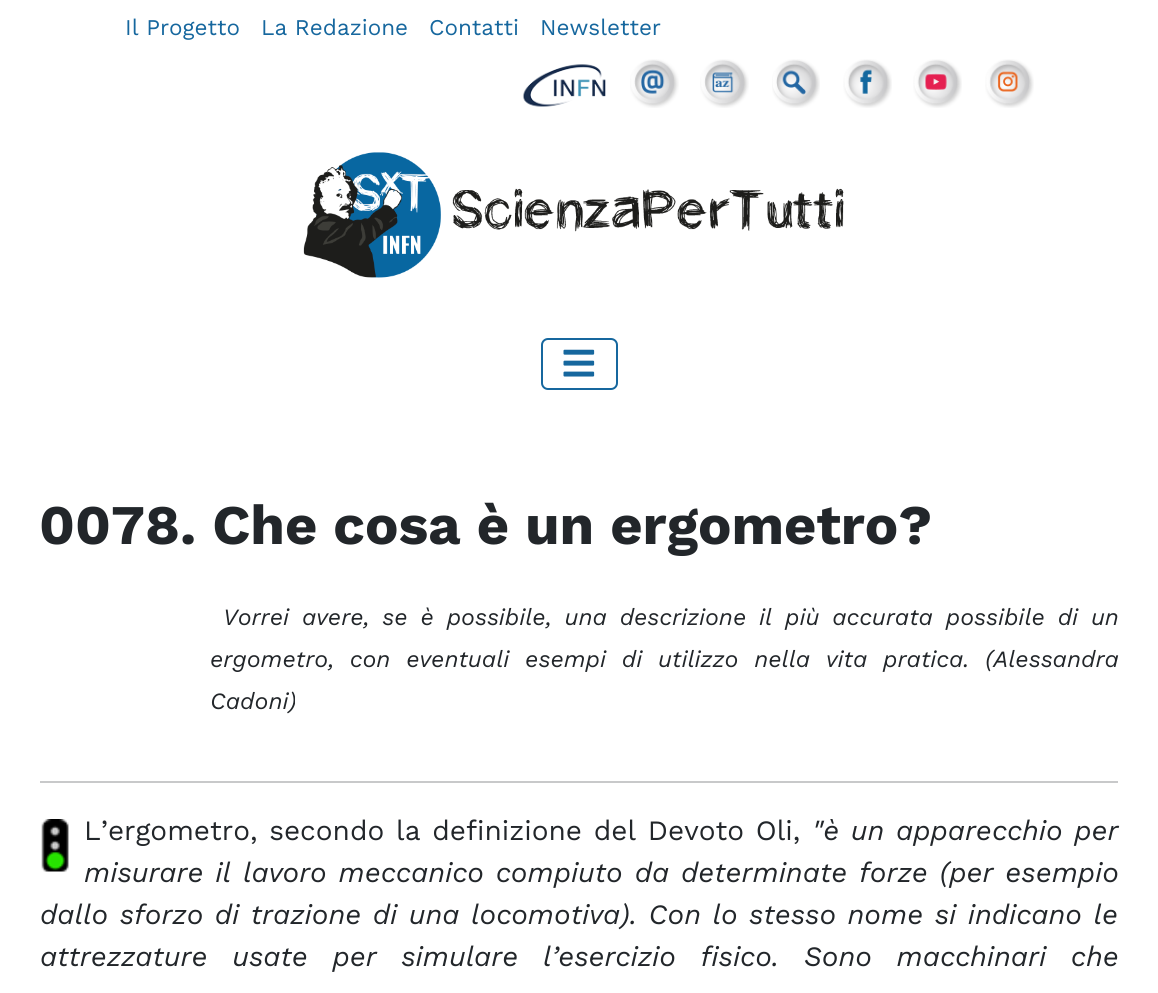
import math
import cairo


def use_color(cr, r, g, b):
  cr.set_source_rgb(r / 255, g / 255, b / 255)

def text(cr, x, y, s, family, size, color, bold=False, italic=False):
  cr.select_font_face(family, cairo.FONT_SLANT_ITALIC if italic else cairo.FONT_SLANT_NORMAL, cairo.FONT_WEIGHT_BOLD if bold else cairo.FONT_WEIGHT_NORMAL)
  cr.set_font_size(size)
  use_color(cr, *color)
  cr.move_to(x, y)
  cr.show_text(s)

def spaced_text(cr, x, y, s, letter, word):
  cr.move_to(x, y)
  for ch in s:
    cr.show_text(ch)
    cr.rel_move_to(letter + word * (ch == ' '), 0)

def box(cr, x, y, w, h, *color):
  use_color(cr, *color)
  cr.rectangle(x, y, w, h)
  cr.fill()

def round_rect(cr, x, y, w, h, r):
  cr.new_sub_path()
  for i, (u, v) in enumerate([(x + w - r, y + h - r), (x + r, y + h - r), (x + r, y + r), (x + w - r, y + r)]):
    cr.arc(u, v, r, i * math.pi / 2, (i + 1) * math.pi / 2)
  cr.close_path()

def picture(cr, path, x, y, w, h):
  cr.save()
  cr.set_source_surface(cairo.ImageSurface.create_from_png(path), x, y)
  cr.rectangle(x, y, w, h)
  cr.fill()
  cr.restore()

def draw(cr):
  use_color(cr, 255, 255, 255)
  cr.paint()
  picture(cr, "img_01.png", 522, 64, 84, 43)
  picture(cr, "img_02.png", 630, 59, 49, 49)
  picture(cr, "img_03.png", 700, 59, 49, 49)
  picture(cr, "img_04.png", 772, 59, 48, 49)
  picture(cr, "img_05.png", 843, 59, 49, 49)
  picture(cr, "img_06.png", 913, 59, 49, 49)
  picture(cr, "img_07.png", 985, 59, 49, 49)
  picture(cr, "img_08.png", 303, 152, 541, 126)
  round_rect(cr, 542, 339, 75, 50, 6)
  use_color(cr, 22, 103, 158)
  cr.stroke()
  picture(cr, "img_09.png", 563, 349, 32, 28)
  box(cr, 40, 781, 1078, 2, 200, 201, 202)
  picture(cr, "img_10.png", 41, 819, 28, 53)
  text(cr, 125, 35, "Il Progetto", "Work Sans", 22.5, (22, 103, 158))
  text(cr, 261, 35, "La Redazione", "Work Sans", 22.5, (22, 103, 158))
  text(cr, 429, 35, "Contatti", "Work Sans", 22.5, (22, 103, 158))
  text(cr, 540, 35, "Newsletter", "Work Sans", 22.5, (22, 103, 158))
  text(cr, 39, 544, "0078. Che cosa è un ergometro?", "Work Sans", 55.9, (34, 38, 42), bold=True)
  cr.select_font_face("Work Sans", cairo.FONT_SLANT_ITALIC)
  cr.set_font_size(23.35)
  spaced_text(cr, 223, 625, "Vorrei avere, se è possibile, una descrizione il più accurata possibile di un", 0, 5)
  spaced_text(cr, 210, 667, "ergometro, con eventuali esempi di utilizzo nella vita pratica. (Alessandra", 0, 8)
  text(cr, 210, 709, "Cadoni)", "Work Sans", 23.35, (34, 38, 42), italic=True)
  cr.select_font_face("Work Sans")
  cr.set_font_size(28)
  spaced_text(cr, 84, 840, "L’ergometro, secondo la definizione del Devoto Oli,", 0, 2.25)
  cr.select_font_face("Work Sans", cairo.FONT_SLANT_ITALIC)
  spaced_text(cr, 812, 840, "\"è un apparecchio per", 0, 2.25)
  spaced_text(cr, 84, 882, "misurare il lavoro meccanico compiuto da determinate forze (per esempio", 0, 2.5)
  spaced_text(cr, 40, 924, "dallo sforzo di trazione di una locomotiva). Con lo stesso nome si indicano le", 0, 2.1)
  spaced_text(cr, 40, 966, "attrezzature usate per simulare l’esercizio fisico. Sono macchinari che", 0, 15.25)


surface = cairo.ImageSurface(cairo.FORMAT_RGB24, 1158, 993)
cr = cairo.Context(surface)
options = cairo.FontOptions()
options.set_hint_metrics(cairo.HINT_METRICS_OFF)
options.set_hint_style(cairo.HINT_STYLE_NONE)
cr.set_font_options(options)
cr.set_miter_limit(4)
draw(cr)
surface.write_to_png("out.png")
